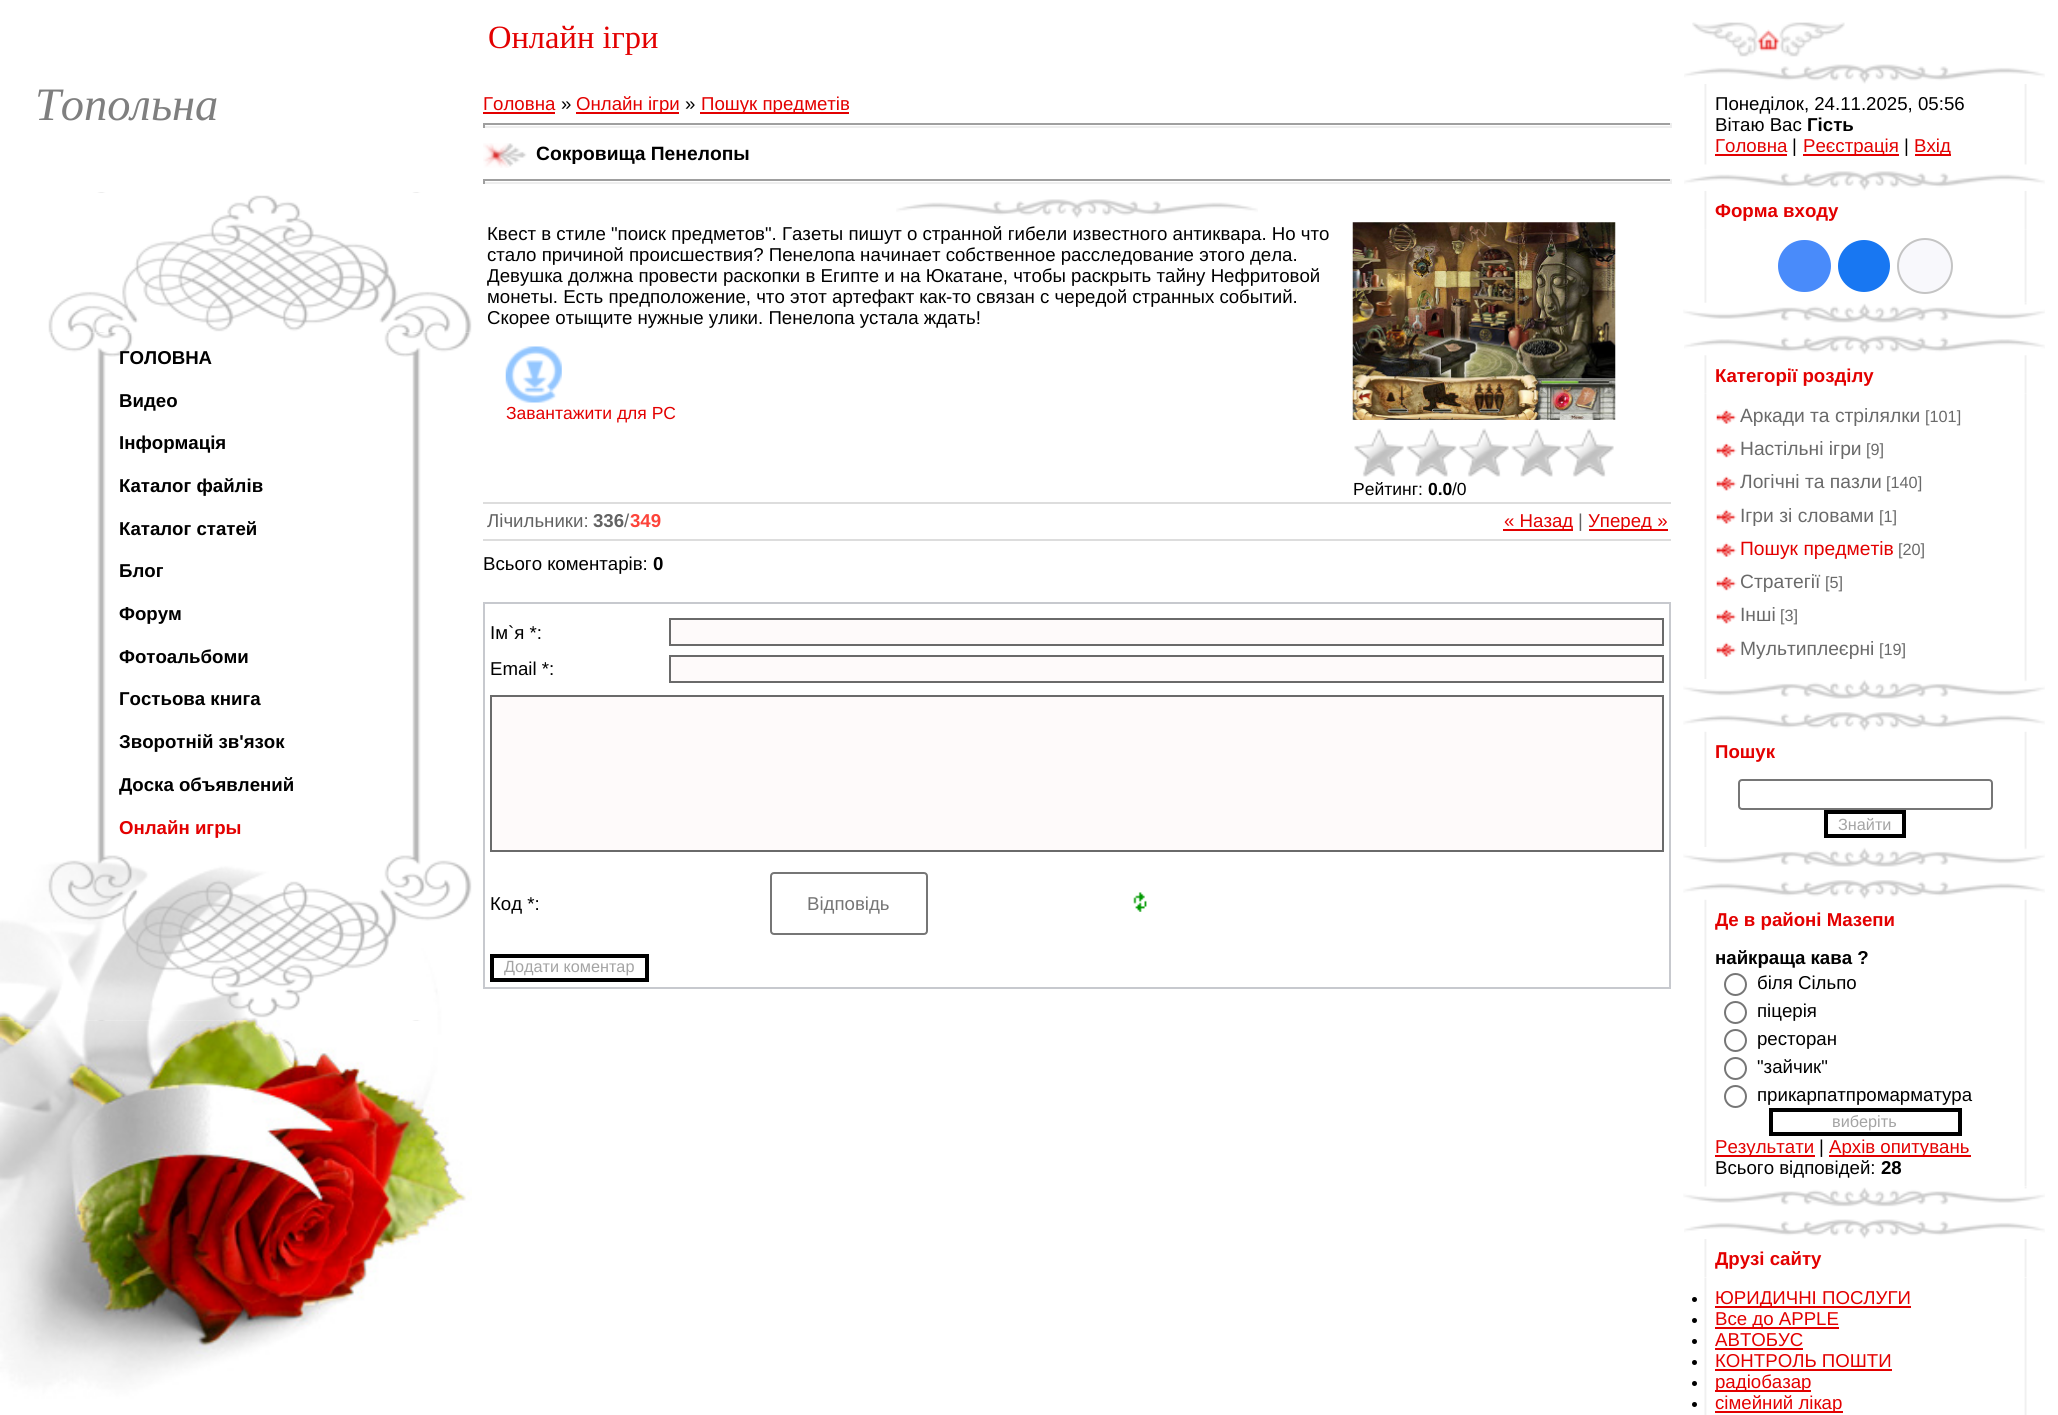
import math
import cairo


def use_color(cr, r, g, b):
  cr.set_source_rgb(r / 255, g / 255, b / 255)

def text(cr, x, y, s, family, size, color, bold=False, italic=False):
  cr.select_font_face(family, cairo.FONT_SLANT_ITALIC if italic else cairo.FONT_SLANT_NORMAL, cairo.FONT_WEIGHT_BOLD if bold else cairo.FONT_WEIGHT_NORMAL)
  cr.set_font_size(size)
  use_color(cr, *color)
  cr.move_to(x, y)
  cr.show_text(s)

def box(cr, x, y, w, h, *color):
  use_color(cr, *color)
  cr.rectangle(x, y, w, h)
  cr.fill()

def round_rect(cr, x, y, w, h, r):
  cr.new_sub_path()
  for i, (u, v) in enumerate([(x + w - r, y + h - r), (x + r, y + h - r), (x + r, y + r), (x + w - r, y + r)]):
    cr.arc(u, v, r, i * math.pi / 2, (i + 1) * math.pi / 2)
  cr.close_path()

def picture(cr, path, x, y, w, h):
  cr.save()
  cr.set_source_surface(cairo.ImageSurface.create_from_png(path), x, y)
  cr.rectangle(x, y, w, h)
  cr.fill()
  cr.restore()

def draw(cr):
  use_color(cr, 255, 255, 255)
  cr.paint()
  picture(cr, "img_01.png", 1692, 22, 153, 35)
  picture(cr, "img_02.png", 97, 192, 324, 829)
  picture(cr, "img_04.png", 49, 332, 422, 25)
  picture(cr, "img_03.png", 48, 192, 424, 141)
  picture(cr, "img_05.png", 0, 855, 472, 166)
  picture(cr, "img_06.png", 0, 1020, 472, 395)
  box(cr, 483, 112, 72, 2, 227, 0, 0)
  box(cr, 576, 112, 103, 2, 227, 0, 0)
  box(cr, 700, 112, 149, 2, 227, 0, 0)
  box(cr, 483, 123, 1188, 2, 159, 159, 159)
  box(cr, 1670, 123, 2, 5, 238, 238, 238)
  box(cr, 483, 126, 1188, 2, 238, 238, 238)
  box(cr, 483, 123, 2, 5, 159, 159, 159)
  picture(cr, "img_07.png", 483, 143, 44, 25)
  box(cr, 483, 179, 1188, 2, 159, 159, 159)
  box(cr, 1670, 179, 2, 5, 238, 238, 238)
  box(cr, 483, 182, 1188, 2, 238, 238, 238)
  box(cr, 483, 179, 2, 5, 159, 159, 159)
  picture(cr, "img_08.png", 896, 199, 362, 20)
  box(cr, 483, 539, 1188, 2, 221, 221, 221)
  picture(cr, "img_09.png", 505, 346, 57, 57)
  picture(cr, "img_10.png", 1352, 222, 264, 198)
  picture(cr, "img_11.png", 1354, 428, 260, 49)
  box(cr, 483, 502, 1188, 2, 221, 221, 221)
  box(cr, 1503, 529, 70, 2, 227, 0, 0)
  box(cr, 1589, 529, 79, 2, 227, 0, 0)
  cr.rectangle(484, 603, 1186, 385)
  use_color(cr, 199, 201, 206)
  cr.stroke()
  use_color(cr, 254, 250, 250)
  cr.rectangle(670, 619, 993, 26)
  cr.fill_preserve()
  use_color(cr, 106, 106, 106)
  cr.stroke()
  use_color(cr, 254, 250, 250)
  cr.rectangle(670, 656, 993, 26)
  cr.fill_preserve()
  use_color(cr, 106, 106, 106)
  cr.stroke()
  use_color(cr, 254, 250, 250)
  cr.rectangle(491, 696, 1172, 155)
  cr.fill_preserve()
  use_color(cr, 106, 106, 106)
  cr.stroke()
  round_rect(cr, 771, 873, 156, 61, 3)
  use_color(cr, 118, 118, 118)
  cr.stroke()
  picture(cr, "img_12.png", 1133, 892, 14, 20)
  cr.rectangle(492, 956, 155, 24)
  use_color(cr, 0, 0, 0)
  cr.set_line_width(4)
  cr.stroke()
  picture(cr, "img_13.png", 1684, 64, 361, 20)
  picture(cr, "img_14.png", 1704, 84, 323, 81)
  box(cr, 1715, 154, 72, 2, 227, 0, 0)
  box(cr, 1803, 154, 96, 2, 227, 0, 0)
  box(cr, 1915, 154, 36, 2, 227, 0, 0)
  picture(cr, "img_16.png", 1704, 190, 323, 40)
  picture(cr, "img_15.png", 1684, 171, 361, 20)
  picture(cr, "img_17.png", 1704, 229, 323, 74)
  use_color(cr, 73, 139, 250)
  round_rect(cr, 1778, 240, 53, 52, 26)
  cr.fill()
  use_color(cr, 24, 119, 242)
  cr.arc(1864, 266, 26, 0, 2 * math.pi)
  cr.fill()
  use_color(cr, 248, 248, 252)
  cr.arc(1925, 266, 27, 0, 2 * math.pi)
  cr.fill_preserve()
  use_color(cr, 196, 196, 196)
  cr.set_line_width(2)
  cr.stroke()
  picture(cr, "img_18.png", 1683, 303, 362, 20)
  picture(cr, "img_19.png", 1684, 335, 361, 20)
  picture(cr, "img_20.png", 1704, 355, 323, 39)
  picture(cr, "img_21.png", 1704, 394, 323, 285)
  picture(cr, "img_22.png", 1716, 409, 21, 15)
  picture(cr, "img_23.png", 1716, 442, 21, 16)
  picture(cr, "img_24.png", 1716, 476, 21, 15)
  picture(cr, "img_25.png", 1716, 509, 21, 15)
  picture(cr, "img_22.png", 1716, 542, 21, 15)
  picture(cr, "img_23.png", 1716, 575, 21, 16)
  picture(cr, "img_24.png", 1716, 609, 21, 15)
  picture(cr, "img_25.png", 1716, 642, 21, 15)
  picture(cr, "img_26.png", 1683, 679, 362, 20)
  picture(cr, "img_28.png", 1704, 731, 323, 39)
  picture(cr, "img_27.png", 1683, 712, 362, 20)
  picture(cr, "img_29.png", 1704, 770, 323, 77)
  round_rect(cr, 1739, 780, 253, 29, 3)
  use_color(cr, 118, 118, 118)
  cr.stroke()
  cr.rectangle(1826, 812, 78, 24)
  use_color(cr, 0, 0, 0)
  cr.set_line_width(4)
  cr.stroke()
  picture(cr, "img_26.png", 1683, 847, 362, 20)
  picture(cr, "img_28.png", 1704, 899, 323, 39)
  picture(cr, "img_27.png", 1683, 880, 362, 20)
  picture(cr, "img_30.png", 1704, 938, 323, 249)
  cr.arc(1735.5, 984.5, 10.5, 0, 2 * math.pi)
  use_color(cr, 118, 118, 118)
  cr.set_line_width(2)
  cr.stroke()
  cr.arc(1735.5, 1012.5, 10.5, 0, 2 * math.pi)
  cr.stroke()
  cr.arc(1735.5, 1040.5, 10.5, 0, 2 * math.pi)
  cr.stroke()
  cr.arc(1735.5, 1068.5, 10.5, 0, 2 * math.pi)
  cr.stroke()
  cr.arc(1735.5, 1096.5, 10.5, 0, 2 * math.pi)
  cr.stroke()
  cr.rectangle(1771, 1110, 189, 24)
  use_color(cr, 0, 0, 0)
  cr.set_line_width(4)
  cr.stroke()
  box(cr, 1715, 1155, 100, 2, 227, 0, 0)
  box(cr, 1829, 1155, 142, 2, 227, 0, 0)
  picture(cr, "img_31.png", 1683, 1187, 362, 20)
  picture(cr, "img_13.png", 1684, 1219, 361, 20)
  picture(cr, "img_32.png", 1704, 1239, 323, 39)
  picture(cr, "img_33.png", 1704, 1278, 323, 137)
  use_color(cr, 0, 0, 0)
  cr.arc(1694.5, 1299.5, 2.5, 0, 2 * math.pi)
  cr.fill()
  box(cr, 1715, 1306, 196, 2, 227, 0, 0)
  use_color(cr, 0, 0, 0)
  cr.arc(1694.5, 1320.5, 2.5, 0, 2 * math.pi)
  cr.fill()
  box(cr, 1715, 1327, 124, 2, 227, 0, 0)
  use_color(cr, 0, 0, 0)
  cr.arc(1694.5, 1341.5, 2.5, 0, 2 * math.pi)
  cr.fill()
  box(cr, 1715, 1348, 88, 2, 227, 0, 0)
  use_color(cr, 0, 0, 0)
  cr.arc(1694.5, 1362.5, 2.5, 0, 2 * math.pi)
  cr.fill()
  box(cr, 1715, 1369, 177, 2, 227, 0, 0)
  use_color(cr, 0, 0, 0)
  cr.arc(1694.5, 1383.5, 2.5, 0, 2 * math.pi)
  cr.fill()
  box(cr, 1715, 1390, 96, 2, 227, 0, 0)
  use_color(cr, 0, 0, 0)
  cr.arc(1694.5, 1404.5, 2.5, 0, 2 * math.pi)
  cr.fill()
  box(cr, 1715, 1411, 128, 2, 227, 0, 0)
  text(cr, 488, 48, "Онлайн ігри", "Liberation Serif", 32.5, (227, 0, 0))
  text(cr, 35, 120, "Топольна", "Liberation Serif", 46.5, (127, 127, 127), italic=True)
  text(cr, 119, 364, "ГОЛОВНА", "Liberation Sans", 18.65, (0, 0, 0), bold=True)
  text(cr, 119, 407, "Видео", "Liberation Sans", 18.65, (0, 0, 0), bold=True)
  text(cr, 119, 449, "Інформація", "Liberation Sans", 18.65, (0, 0, 0), bold=True)
  text(cr, 119, 492, "Каталог файлів", "Liberation Sans", 18.65, (0, 0, 0), bold=True)
  text(cr, 119, 535, "Каталог статей", "Liberation Sans", 18.65, (0, 0, 0), bold=True)
  text(cr, 119, 577, "Блог", "Liberation Sans", 18.65, (0, 0, 0), bold=True)
  text(cr, 119, 620, "Форум", "Liberation Sans", 18.65, (0, 0, 0), bold=True)
  text(cr, 119, 663, "Фотоальбоми", "Liberation Sans", 18.65, (0, 0, 0), bold=True)
  text(cr, 119, 705, "Гостьова книга", "Liberation Sans", 18.65, (0, 0, 0), bold=True)
  text(cr, 119, 748, "Зворотній зв'язок", "Liberation Sans", 18.65, (0, 0, 0), bold=True)
  text(cr, 119, 791, "Доска объявлений", "Liberation Sans", 18.65, (0, 0, 0), bold=True)
  text(cr, 119, 834, "Онлайн игры", "Liberation Sans", 18.65, (227, 0, 0), bold=True)
  text(cr, 483, 110, "Головна", "Liberation Sans", 18.65, (227, 0, 0))
  text(cr, 561, 110, "»", "Liberation Sans", 18.65, (0, 0, 0))
  text(cr, 576, 110, "Онлайн ігри", "Liberation Sans", 18.65, (227, 0, 0))
  text(cr, 685, 110, "»", "Liberation Sans", 18.65, (0, 0, 0))
  text(cr, 701, 110, "Пошук предметів", "Liberation Sans", 18.65, (227, 0, 0))
  text(cr, 536, 160, "Сокровища Пенелопы", "Liberation Sans", 19.25, (0, 0, 0), bold=True)
  text(cr, 487, 240, "Квест в стиле \"поиск предметов\". Газеты пишут о странной гибели известного антиквара. Но что", "Liberation Sans", 18.65, (0, 0, 0))
  text(cr, 487, 261, "стало причиной происшествия? Пенелопа начинает собственное расследование этого дела.", "Liberation Sans", 18.65, (0, 0, 0))
  text(cr, 487, 282, "Девушка должна провести раскопки в Египте и на Юкатане, чтобы раскрыть тайну Нефритовой", "Liberation Sans", 18.65, (0, 0, 0))
  text(cr, 487, 303, "монеты. Есть предположение, что этот артефакт как-то связан с чередой странных событий.", "Liberation Sans", 18.65, (0, 0, 0))
  text(cr, 487, 324, "Скорее отыщите нужные улики. Пенелопа устала ждать!", "Liberation Sans", 18.65, (0, 0, 0))
  text(cr, 506, 419, "Завантажити для PC", "Liberation Sans", 17.5, (227, 0, 0))
  text(cr, 1353, 495, "Рейтинг:", "Liberation Sans", 17.5, (0, 0, 0))
  text(cr, 1428, 495, "0.0", "Liberation Sans", 17.5, (0, 0, 0), bold=True)
  text(cr, 1452, 495, "/0", "Liberation Sans", 17.5, (0, 0, 0))
  text(cr, 487, 527, "Лічильники:", "Liberation Sans", 18.65, (99, 99, 99))
  text(cr, 593, 527, "336", "Liberation Sans", 18.65, (99, 99, 99), bold=True)
  text(cr, 624, 527, "/", "Liberation Sans", 18.65, (99, 99, 99))
  text(cr, 630, 527, "349", "Liberation Sans", 18.65, (253, 67, 57), bold=True)
  text(cr, 1504, 527, "« Назад", "Liberation Sans", 18.65, (227, 0, 0))
  text(cr, 1578, 527, "|", "Liberation Sans", 18.65, (99, 99, 99))
  text(cr, 1588, 527, "Уперед »", "Liberation Sans", 18.65, (227, 0, 0))
  text(cr, 483, 570, "Всього коментарів:", "Liberation Sans", 18.65, (0, 0, 0))
  text(cr, 653, 570, "0", "Liberation Sans", 18.65, (0, 0, 0), bold=True)
  text(cr, 490, 639, "Ім`я *:", "Liberation Sans", 18.65, (0, 0, 0))
  text(cr, 490, 675, "Email *:", "Liberation Sans", 18.65, (0, 0, 0))
  text(cr, 490, 910, "Код *:", "Liberation Sans", 18.65, (0, 0, 0))
  text(cr, 807, 910, "Відповідь", "Liberation Sans", 18.65, (117, 117, 117))
  text(cr, 504, 972, "Додати коментар", "Liberation Sans", 16.25, (164, 164, 164))
  text(cr, 1715, 110, "Понеділок, 24.11.2025, 05:56", "Liberation Sans", 18.65, (0, 0, 0))
  text(cr, 1715, 131, "Вітаю Вас", "Liberation Sans", 18.65, (0, 0, 0))
  text(cr, 1807, 131, "Гість", "Liberation Sans", 18.65, (0, 0, 0), bold=True)
  text(cr, 1715, 152, "Головна", "Liberation Sans", 18.65, (227, 0, 0))
  text(cr, 1792, 152, "|", "Liberation Sans", 18.65, (0, 0, 0))
  text(cr, 1803, 152, "Реєстрація", "Liberation Sans", 18.65, (227, 0, 0))
  text(cr, 1904, 152, "|", "Liberation Sans", 18.65, (0, 0, 0))
  text(cr, 1914, 152, "Вхід", "Liberation Sans", 18.65, (227, 0, 0))
  text(cr, 1715, 217, "Форма входу", "Liberation Sans", 18.65, (227, 0, 0), bold=True)
  text(cr, 1715, 382, "Категорії розділу", "Liberation Sans", 18.65, (227, 0, 0), bold=True)
  text(cr, 1740, 422, "Аркади та стрілялки", "Liberation Sans", 19.25, (106, 106, 106))
  text(cr, 1925, 422, "[101]", "Liberation Sans", 16.25, (106, 106, 106))
  text(cr, 1740, 455, "Настільні ігри", "Liberation Sans", 19.25, (106, 106, 106))
  text(cr, 1866, 455, "[9]", "Liberation Sans", 16.25, (106, 106, 106))
  text(cr, 1740, 488, "Логічні та пазли", "Liberation Sans", 19.25, (106, 106, 106))
  text(cr, 1886, 488, "[140]", "Liberation Sans", 16.25, (106, 106, 106))
  text(cr, 1740, 522, "Ігри зі словами", "Liberation Sans", 19.25, (106, 106, 106))
  text(cr, 1879, 522, "[1]", "Liberation Sans", 16.25, (106, 106, 106))
  text(cr, 1740, 555, "Пошук предметів", "Liberation Sans", 19.25, (227, 0, 0))
  text(cr, 1898, 555, "[20]", "Liberation Sans", 16.25, (106, 106, 106))
  text(cr, 1740, 588, "Стратегії", "Liberation Sans", 19.25, (106, 106, 106))
  text(cr, 1825, 588, "[5]", "Liberation Sans", 16.25, (106, 106, 106))
  text(cr, 1740, 621, "Інші", "Liberation Sans", 19.25, (106, 106, 106))
  text(cr, 1780, 621, "[3]", "Liberation Sans", 16.25, (106, 106, 106))
  text(cr, 1740, 655, "Мультиплеєрні", "Liberation Sans", 19.25, (106, 106, 106))
  text(cr, 1879, 655, "[19]", "Liberation Sans", 16.25, (106, 106, 106))
  text(cr, 1715, 758, "Пошук", "Liberation Sans", 18.65, (227, 0, 0), bold=True)
  text(cr, 1838, 830, "Знайти", "Liberation Sans", 16.25, (164, 164, 164))
  text(cr, 1715, 926, "Де в районі Мазепи", "Liberation Sans", 18.65, (227, 0, 0), bold=True)
  text(cr, 1715, 964, "найкраща кава ?", "Liberation Sans", 18.65, (0, 0, 0), bold=True)
  text(cr, 1757, 989, "біля Сільпо", "Liberation Sans", 18.65, (0, 0, 0))
  text(cr, 1757, 1017, "піцерія", "Liberation Sans", 18.65, (0, 0, 0))
  text(cr, 1757, 1045, "ресторан", "Liberation Sans", 18.65, (0, 0, 0))
  text(cr, 1757, 1073, "\"зайчик\"", "Liberation Sans", 18.65, (0, 0, 0))
  text(cr, 1757, 1101, "прикарпатпромарматура", "Liberation Sans", 18.65, (0, 0, 0))
  text(cr, 1832, 1127, "виберіть", "Liberation Sans", 16.25, (164, 164, 164))
  text(cr, 1715, 1153, "Результати", "Liberation Sans", 18.65, (227, 0, 0))
  text(cr, 1819, 1153, "|", "Liberation Sans", 18.65, (0, 0, 0))
  text(cr, 1829, 1153, "Архів опитувань", "Liberation Sans", 18.65, (227, 0, 0))
  text(cr, 1715, 1174, "Всього відповідей:", "Liberation Sans", 18.65, (0, 0, 0))
  text(cr, 1881, 1174, "28", "Liberation Sans", 18.65, (0, 0, 0), bold=True)
  text(cr, 1715, 1265, "Друзі сайту", "Liberation Sans", 18.65, (227, 0, 0), bold=True)
  text(cr, 1715, 1304, "ЮРИДИЧНІ ПОСЛУГИ", "Liberation Sans", 18.65, (227, 0, 0))
  text(cr, 1715, 1325, "Все до APPLE", "Liberation Sans", 18.65, (227, 0, 0))
  text(cr, 1715, 1346, "АВТОБУС", "Liberation Sans", 18.65, (227, 0, 0))
  text(cr, 1715, 1367, "КОНТРОЛЬ ПОШТИ", "Liberation Sans", 18.65, (227, 0, 0))
  text(cr, 1715, 1388, "радіобазар", "Liberation Sans", 18.65, (227, 0, 0))
  text(cr, 1715, 1409, "сімейний лікар", "Liberation Sans", 18.65, (227, 0, 0))


surface = cairo.ImageSurface(cairo.FORMAT_RGB24, 2058, 1415)
cr = cairo.Context(surface)
options = cairo.FontOptions()
options.set_hint_metrics(cairo.HINT_METRICS_OFF)
options.set_hint_style(cairo.HINT_STYLE_NONE)
cr.set_font_options(options)
cr.set_miter_limit(4)
draw(cr)
surface.write_to_png("out.png")
